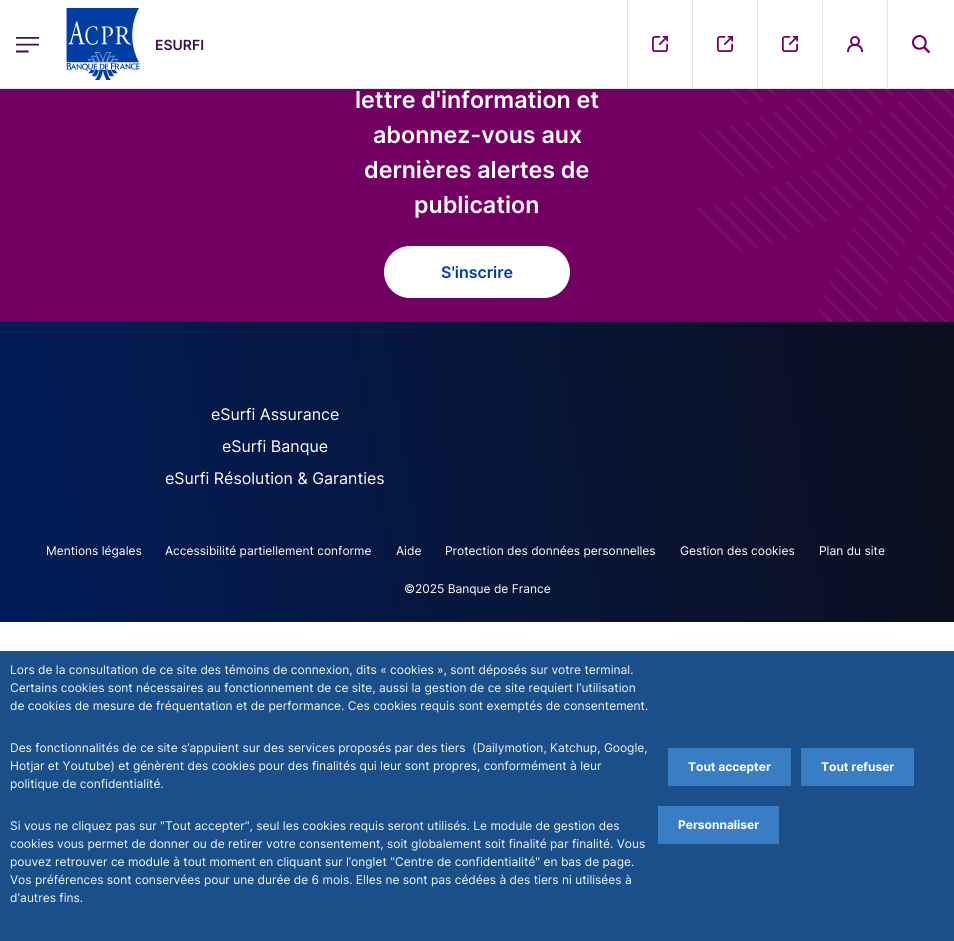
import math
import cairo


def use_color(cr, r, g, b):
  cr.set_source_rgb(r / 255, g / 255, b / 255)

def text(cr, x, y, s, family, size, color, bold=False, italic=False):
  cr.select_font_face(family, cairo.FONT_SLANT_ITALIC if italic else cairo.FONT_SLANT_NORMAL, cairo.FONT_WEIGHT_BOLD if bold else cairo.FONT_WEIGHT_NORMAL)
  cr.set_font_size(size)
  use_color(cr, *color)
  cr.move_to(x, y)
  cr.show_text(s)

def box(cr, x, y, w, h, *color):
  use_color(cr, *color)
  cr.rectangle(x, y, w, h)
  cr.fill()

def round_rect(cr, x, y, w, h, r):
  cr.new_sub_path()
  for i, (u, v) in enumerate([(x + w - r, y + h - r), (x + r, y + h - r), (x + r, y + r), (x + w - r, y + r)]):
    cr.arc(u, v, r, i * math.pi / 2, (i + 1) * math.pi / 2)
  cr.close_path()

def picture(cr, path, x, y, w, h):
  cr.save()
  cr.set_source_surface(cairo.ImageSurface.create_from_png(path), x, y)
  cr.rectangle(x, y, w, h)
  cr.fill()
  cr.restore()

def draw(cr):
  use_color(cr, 255, 255, 255)
  cr.paint()
  box(cr, 0, 88, 954, 1, 228, 228, 228)
  picture(cr, "img_01.png", 16, 37, 23, 16)
  picture(cr, "img_02.png", 66, 8, 74, 72)
  box(cr, 627, 0, 1, 88, 228, 228, 228)
  picture(cr, "img_03.png", 652, 36, 16, 16)
  box(cr, 692, 0, 1, 88, 228, 228, 228)
  picture(cr, "img_03.png", 717, 36, 16, 16)
  box(cr, 757, 0, 1, 88, 228, 228, 228)
  picture(cr, "img_03.png", 782, 36, 16, 16)
  box(cr, 822, 0, 1, 88, 228, 228, 228)
  picture(cr, "img_04.png", 847, 36, 16, 16)
  box(cr, 887, 0, 1, 88, 228, 228, 228)
  picture(cr, "img_05.png", 912, 35, 18, 18)
  box(cr, 0, 89, 954, 233, 114, 0, 98)
  use_color(cr, 255, 255, 255)
  round_rect(cr, 384.5, 246.5, 185, 51, 25.5)
  cr.fill_preserve()
  cr.set_line_width(1)
  cr.stroke()
  picture(cr, "img_06.png", 697, 89, 257, 233)
  gradient = cairo.LinearGradient(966, 395, -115, 566)
  gradient.add_color_stop_rgba(0, 0.047, 0.059, 0.114, 1)
  gradient.add_color_stop_rgba(1, 0, 0.118, 0.376, 1)
  cr.set_source(gradient)
  cr.rectangle(0, 322, 954, 300)
  cr.fill()
  box(cr, 0, 651, 954, 290, 26, 79, 138)
  box(cr, 668, 748, 123, 38, 57, 126, 197)
  box(cr, 801, 748, 113, 38, 57, 126, 197)
  box(cr, 658, 806, 121, 38, 57, 126, 197)
  text(cr, 155, 50, "ESURFI", "Inter SemiBold", 14, (60, 16, 83))
  text(cr, 355, 108, "lettre d'information et", "Inter SemiBold", 23.25, (255, 255, 255))
  text(cr, 373, 143, "abonnez-vous aux", "Inter SemiBold", 23.25, (255, 255, 255))
  text(cr, 364, 178, "dernières alertes de", "Inter SemiBold", 23.25, (255, 255, 255))
  text(cr, 414, 213, "publication", "Inter SemiBold", 23.25, (255, 255, 255))
  text(cr, 441, 278, "S'inscrire", "Inter SemiBold", 16, (0, 61, 165))
  text(cr, 211, 420, "eSurfi Assurance", "Inter", 16, (255, 255, 255))
  text(cr, 222, 452, "eSurfi Banque", "Inter", 16, (255, 255, 255))
  text(cr, 165, 484, "eSurfi Résolution & Garanties", "Inter", 16, (255, 255, 255))
  text(cr, 46, 555, "Mentions légales", "Inter", 12, (255, 255, 255))
  text(cr, 165, 555, "Accessibilité partiellement conforme", "Inter", 12, (255, 255, 255))
  text(cr, 396, 555, "Aide", "Inter", 12, (255, 255, 255))
  text(cr, 445, 555, "Protection des données personnelles", "Inter", 12, (255, 255, 255))
  text(cr, 680, 555, "Gestion des cookies", "Inter", 12, (255, 255, 255))
  text(cr, 819, 555, "Plan du site", "Inter", 12, (255, 255, 255))
  text(cr, 404, 593, "©2025 Banque de France", "Inter", 12, (255, 255, 255))
  text(cr, 10, 674, "Lors de la consultation de ce site des témoins de connexion, dits « cookies », sont déposés sur votre terminal.", "Inter", 12, (240, 247, 249))
  text(cr, 10, 692, "Certains cookies sont nécessaires au fonctionnement de ce site, aussi la gestion de ce site requiert l’utilisation", "Inter", 12, (240, 247, 249))
  text(cr, 10, 710, "de cookies de mesure de fréquentation et de performance. Ces cookies requis sont exemptés de consentement.", "Inter", 12, (240, 247, 249))
  text(cr, 10, 752, "Des fonctionnalités de ce site s’appuient sur des services proposés par des tiers  (Dailymotion, Katchup, Google,", "Inter", 12, (240, 247, 249))
  text(cr, 10, 770, "Hotjar et Youtube) et génèrent des cookies pour des finalités qui leur sont propres, conformément à leur", "Inter", 12, (240, 247, 249))
  text(cr, 10, 788, "politique de confidentialité.", "Inter", 12, (240, 247, 249))
  text(cr, 10, 830, "Si vous ne cliquez pas sur \"Tout accepter\", seul les cookies requis seront utilisés. Le module de gestion des", "Inter", 12, (240, 247, 249))
  text(cr, 10, 848, "cookies vous permet de donner ou de retirer votre consentement, soit globalement soit finalité par finalité. Vous", "Inter", 12, (240, 247, 249))
  text(cr, 10, 866, "pouvez retrouver ce module à tout moment en cliquant sur l’onglet \"Centre de confidentialité\" en bas de page.", "Inter", 12, (240, 247, 249))
  text(cr, 10, 884, "Vos préférences sont conservées pour une durée de 6 mois. Elles ne sont pas cédées à des tiers ni utilisées à", "Inter", 12, (240, 247, 249))
  text(cr, 10, 902, "d'autres fins.", "Inter", 12, (240, 247, 249))
  text(cr, 688, 771, "Tout accepter", "Inter", 12, (255, 255, 255), bold=True)
  text(cr, 821, 771, "Tout refuser", "Inter", 12, (255, 255, 255), bold=True)
  text(cr, 678, 829, "Personnaliser", "Inter", 12, (255, 255, 255), bold=True)


surface = cairo.ImageSurface(cairo.FORMAT_RGB24, 954, 941)
cr = cairo.Context(surface)
options = cairo.FontOptions()
options.set_hint_metrics(cairo.HINT_METRICS_OFF)
options.set_hint_style(cairo.HINT_STYLE_NONE)
cr.set_font_options(options)
cr.set_miter_limit(4)
draw(cr)
surface.write_to_png("out.png")
